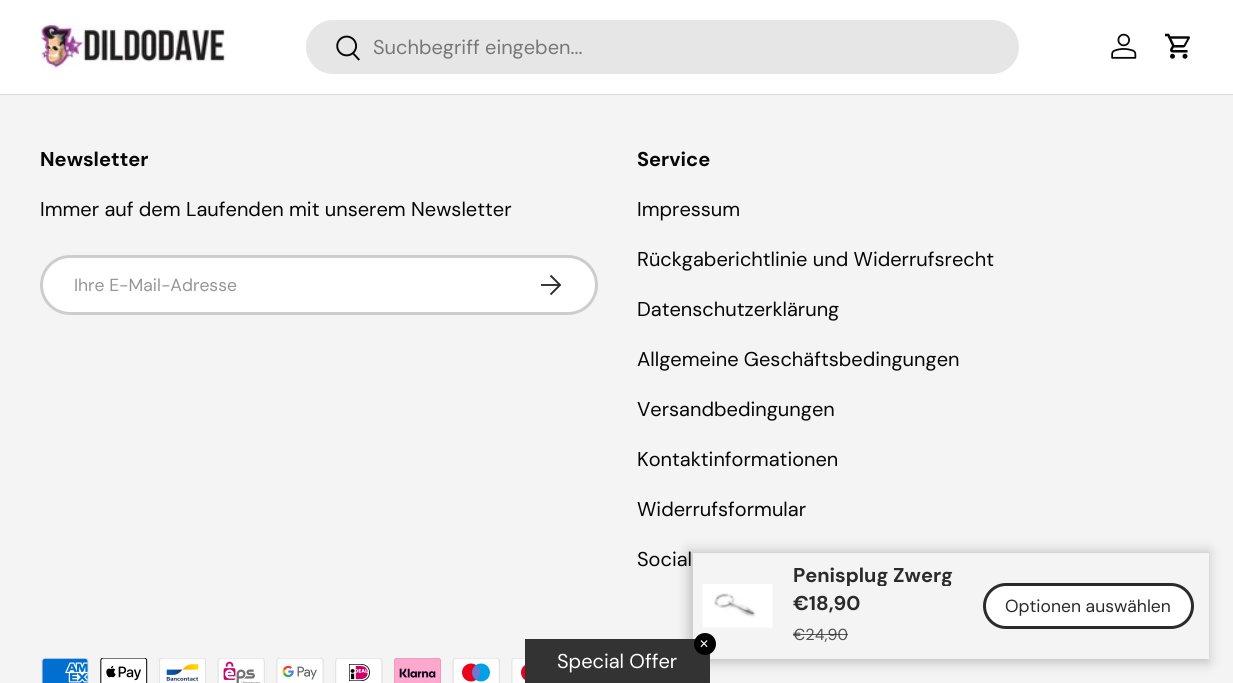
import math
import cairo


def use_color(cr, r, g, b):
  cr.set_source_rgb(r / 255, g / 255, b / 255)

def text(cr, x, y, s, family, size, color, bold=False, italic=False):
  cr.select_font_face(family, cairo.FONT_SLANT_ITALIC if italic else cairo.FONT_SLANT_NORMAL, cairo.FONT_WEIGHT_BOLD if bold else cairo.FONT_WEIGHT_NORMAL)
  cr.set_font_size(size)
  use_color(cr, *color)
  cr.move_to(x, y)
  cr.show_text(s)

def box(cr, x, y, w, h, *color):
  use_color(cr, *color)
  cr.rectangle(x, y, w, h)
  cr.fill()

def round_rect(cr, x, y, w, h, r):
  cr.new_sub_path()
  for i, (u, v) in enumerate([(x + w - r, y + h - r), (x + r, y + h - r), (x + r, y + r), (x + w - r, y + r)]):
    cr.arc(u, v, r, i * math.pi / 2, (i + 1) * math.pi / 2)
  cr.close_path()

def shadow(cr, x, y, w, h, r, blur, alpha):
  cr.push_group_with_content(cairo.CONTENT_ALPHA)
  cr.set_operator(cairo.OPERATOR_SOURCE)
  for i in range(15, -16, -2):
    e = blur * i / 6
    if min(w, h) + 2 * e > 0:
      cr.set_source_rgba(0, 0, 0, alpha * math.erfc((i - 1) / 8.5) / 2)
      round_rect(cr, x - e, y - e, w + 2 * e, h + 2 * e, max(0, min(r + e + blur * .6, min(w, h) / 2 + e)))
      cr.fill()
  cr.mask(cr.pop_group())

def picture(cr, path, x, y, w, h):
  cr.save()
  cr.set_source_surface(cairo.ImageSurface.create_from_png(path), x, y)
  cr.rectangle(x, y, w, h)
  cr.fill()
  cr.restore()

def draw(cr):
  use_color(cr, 244, 244, 244)
  cr.paint()
  box(cr, 0, 0, 1233, 94, 255, 255, 255)
  box(cr, 0, 94, 1233, 1, 218, 218, 218)
  picture(cr, "img_01.png", 40, 25, 185, 43)
  use_color(cr, 230, 230, 230)
  round_rect(cr, 306, 20, 713, 54, 27)
  cr.fill()
  picture(cr, "img_02.png", 336, 35, 24, 26)
  picture(cr, "img_03.png", 1111, 33, 26, 26)
  picture(cr, "img_04.png", 1165, 33, 25, 26)
  use_color(cr, 255, 255, 255)
  round_rect(cr, 40, 255, 558, 60, 30)
  cr.fill()
  round_rect(cr, 41.5, 256.5, 555, 57, 28.5)
  cr.set_source_rgba(0.027, 0.027, 0.027, 0.2)
  cr.set_line_width(3)
  cr.stroke()
  cr.new_path()
  cr.move_to(541, 285)
  cr.line_to(559, 285)
  cr.move_to(550.5, 275.5)
  cr.line_to(560, 285)
  cr.line_to(550.5, 294.5)
  use_color(cr, 42, 43, 42)
  cr.set_line_width(1.9)
  cr.stroke()
  picture(cr, "img_05.png", 41, 658, 48, 25)
  picture(cr, "img_06.png", 100, 658, 48, 25)
  picture(cr, "img_07.png", 159, 658, 47, 25)
  picture(cr, "img_08.png", 217, 658, 48, 25)
  picture(cr, "img_09.png", 276, 658, 48, 25)
  picture(cr, "img_10.png", 335, 658, 48, 25)
  picture(cr, "img_11.png", 394, 658, 47, 25)
  picture(cr, "img_12.png", 452, 658, 48, 25)
  picture(cr, "img_13.png", 511, 658, 14, 25)
  use_color(cr, 0, 0, 0)
  shadow(cr, 688, 551, 521, 112, 0, 6, 0.2)
  box(cr, 693, 553, 516, 106, 244, 244, 244)
  picture(cr, "img_14.png", 702, 584, 71, 44)
  cr.save()
  round_rect(cr, 983, 583, 211, 46, 23)
  cr.clip()
  gradient = cairo.LinearGradient(586, 532, 1178, 679)
  gradient.add_color_stop_rgba(0.6, 0.165, 0.169, 0.165, 0.07)
  gradient.add_color_stop_rgba(0.6, 1, 1, 1, 1)
  gradient.add_color_stop_rgba(1, 1, 1, 1, 1)
  cr.set_source(gradient)
  cr.rectangle(983, 585, 208, 41)
  cr.fill()
  cr.restore()
  round_rect(cr, 984.5, 584.5, 208, 43, 21.5)
  use_color(cr, 42, 43, 42)
  cr.set_line_width(3)
  cr.stroke()
  box(cr, 525, 639, 185, 44, 51, 51, 51)
  use_color(cr, 0, 0, 0)
  cr.arc(705, 644, 11, 0, 2 * math.pi)
  cr.fill()
  text(cr, 373, 54, "Suchbegriff eingeben...", "DM Sans", 20, (119, 119, 119))
  text(cr, 40, 166, "Newsletter", "DM Sans", 20, (7, 7, 7), bold=True)
  text(cr, 40, 216, "Immer auf dem Laufenden mit unserem Newsletter", "DM Sans", 20, (7, 7, 7))
  text(cr, 74, 291, "Ihre E-Mail-Adresse", "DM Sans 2", 17.5, (149, 149, 149))
  text(cr, 637, 166, "Service", "DM Sans", 20, (7, 7, 7), bold=True)
  text(cr, 637, 216, "Impressum", "DM Sans", 20, (7, 7, 7))
  text(cr, 637, 266, "Rückgaberichtlinie und Widerrufsrecht", "DM Sans", 20, (7, 7, 7))
  text(cr, 637, 316, "Datenschutzerklärung", "DM Sans", 20, (7, 7, 7))
  text(cr, 637, 366, "Allgemeine Geschäftsbedingungen", "DM Sans", 20, (7, 7, 7))
  text(cr, 637, 416, "Versandbedingungen", "DM Sans", 20, (7, 7, 7))
  text(cr, 637, 466, "Kontaktinformationen", "DM Sans", 20, (7, 7, 7))
  text(cr, 637, 516, "Widerrufsformular", "DM Sans", 20, (7, 7, 7))
  text(cr, 637, 566, "Social", "DM Sans", 20, (7, 7, 7))
  cr.save()
  cr.rectangle(793, 563, 160, 23)
  cr.clip()
  text(cr, 793, 582, "Penisplug Zwerg", "DM Sans", 20, (42, 43, 42), bold=True)
  cr.restore()
  text(cr, 793, 610, "€18,90", "DM Sans", 20, (42, 43, 42), bold=True)
  text(cr, 793, 640, "€24,90", "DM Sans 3", 16, (82, 83, 82))
  cr.set_source_rgba(0.165, 0.169, 0.165, 0.8)
  cr.rectangle(793, 634, 55, 1)
  cr.fill()
  text(cr, 1005, 612, "Optionen auswählen", "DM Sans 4", 17.5, (42, 43, 42))
  text(cr, 699, 648, "✕", "DejaVu Sans", 12, (255, 255, 255))
  text(cr, 557, 668, "Special Offer", "DM Sans", 20, (255, 255, 255))


surface = cairo.ImageSurface(cairo.FORMAT_RGB24, 1233, 683)
cr = cairo.Context(surface)
options = cairo.FontOptions()
options.set_hint_metrics(cairo.HINT_METRICS_OFF)
options.set_hint_style(cairo.HINT_STYLE_NONE)
cr.set_font_options(options)
cr.set_miter_limit(4)
draw(cr)
surface.write_to_png("out.png")
